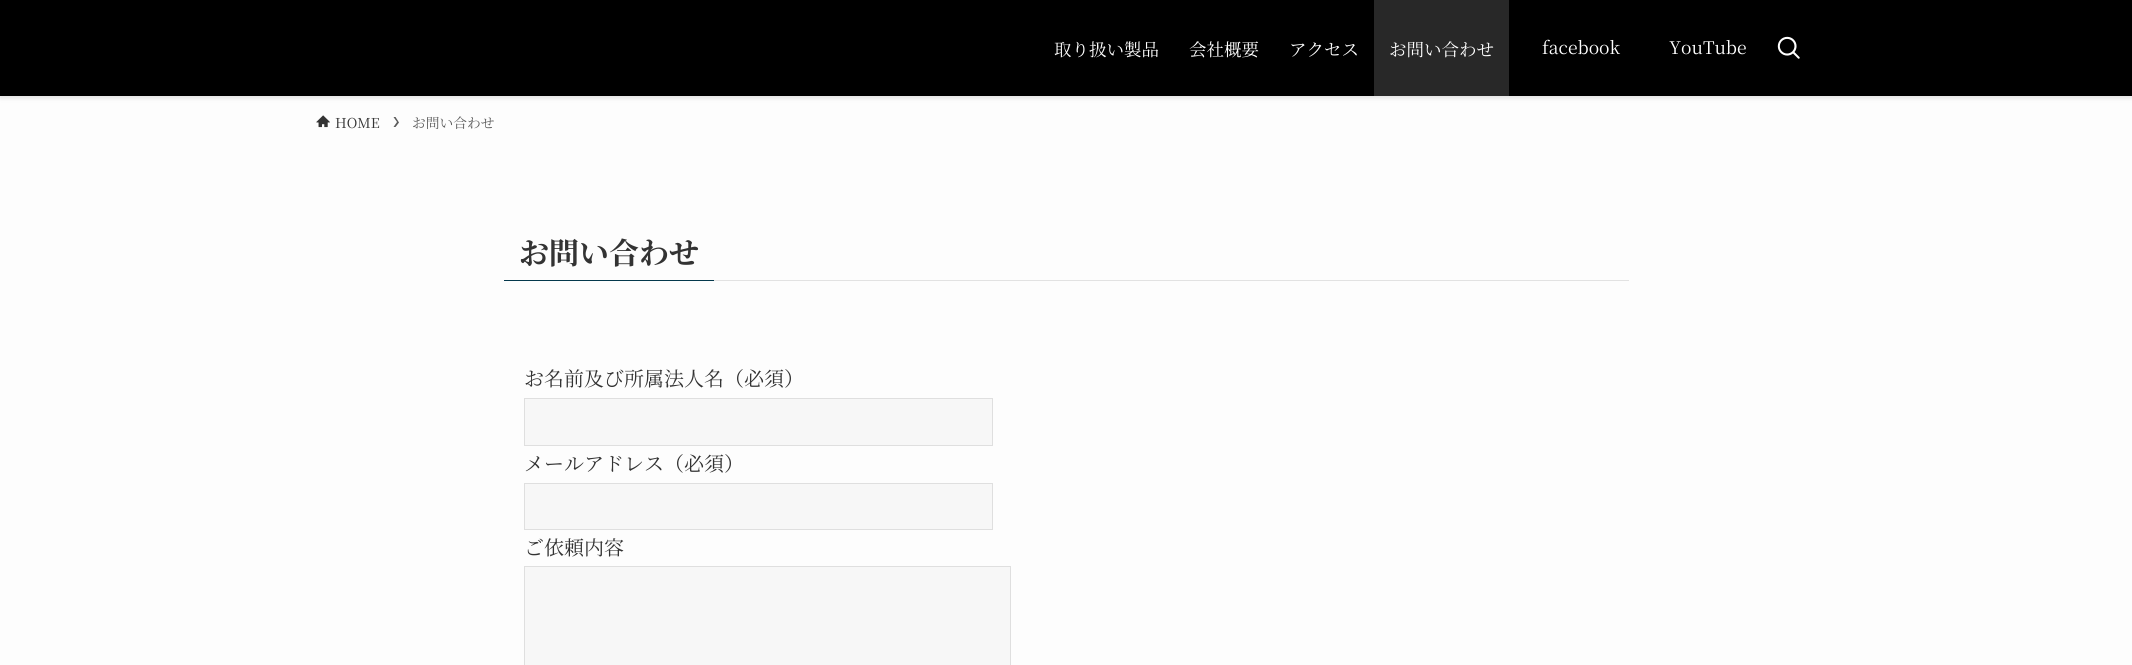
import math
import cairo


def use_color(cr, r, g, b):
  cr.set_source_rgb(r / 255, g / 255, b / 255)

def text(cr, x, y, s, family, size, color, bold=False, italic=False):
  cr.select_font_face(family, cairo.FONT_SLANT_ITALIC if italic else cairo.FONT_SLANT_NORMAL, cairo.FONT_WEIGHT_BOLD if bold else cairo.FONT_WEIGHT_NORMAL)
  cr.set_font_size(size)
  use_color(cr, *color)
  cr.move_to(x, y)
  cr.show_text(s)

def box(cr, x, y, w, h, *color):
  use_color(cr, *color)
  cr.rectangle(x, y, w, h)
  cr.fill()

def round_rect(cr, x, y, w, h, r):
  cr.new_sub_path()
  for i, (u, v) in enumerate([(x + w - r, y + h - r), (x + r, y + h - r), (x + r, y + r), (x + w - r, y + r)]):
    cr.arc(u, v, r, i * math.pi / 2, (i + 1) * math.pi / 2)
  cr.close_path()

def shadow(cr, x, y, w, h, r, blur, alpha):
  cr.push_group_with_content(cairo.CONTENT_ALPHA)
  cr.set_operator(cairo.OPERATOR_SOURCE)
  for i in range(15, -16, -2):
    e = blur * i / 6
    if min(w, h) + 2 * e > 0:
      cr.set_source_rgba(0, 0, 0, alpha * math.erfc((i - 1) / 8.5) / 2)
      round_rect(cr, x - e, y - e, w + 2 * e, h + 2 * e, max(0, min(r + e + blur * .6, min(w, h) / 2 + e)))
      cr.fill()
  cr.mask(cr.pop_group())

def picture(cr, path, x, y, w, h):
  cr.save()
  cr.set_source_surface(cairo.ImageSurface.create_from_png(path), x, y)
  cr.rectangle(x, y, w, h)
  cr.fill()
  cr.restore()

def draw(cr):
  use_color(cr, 253, 253, 253)
  cr.paint()
  use_color(cr, 0, 0, 0)
  shadow(cr, 0, 1, 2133, 97, 0, 2.5, 0.12)
  box(cr, 0, 0, 2132, 96, 0, 0, 0)
  box(cr, 1374, 0, 135, 96, 40, 40, 40)
  picture(cr, "img_01.png", 1777, 36, 23, 23)
  picture(cr, "img_02.png", 316, 115, 14, 13)
  use_color(cr, 91, 91, 91)
  cr.new_path()
  cr.move_to(395.5, 117)
  cr.line_to(393.5, 117)
  cr.line_to(397, 122)
  cr.line_to(393.5, 127)
  cr.line_to(395.5, 127)
  cr.line_to(399, 122.5)
  cr.close_path()
  cr.fill()
  box(cr, 714, 280, 915, 1, 226, 226, 226)
  box(cr, 504, 280, 210, 1, 4, 56, 76)
  use_color(cr, 247, 247, 247)
  cr.rectangle(524.5, 398.5, 468, 47)
  cr.fill_preserve()
  use_color(cr, 223, 223, 223)
  cr.set_line_width(1)
  cr.stroke()
  use_color(cr, 247, 247, 247)
  cr.rectangle(524.5, 483.5, 468, 46)
  cr.fill_preserve()
  use_color(cr, 223, 223, 223)
  cr.stroke()
  use_color(cr, 247, 247, 247)
  cr.rectangle(524.5, 566.5, 486, 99)
  cr.fill_preserve()
  use_color(cr, 223, 223, 223)
  cr.stroke()
  text(cr, 1054, 56, "取り扱い製品", "Noto Serif JP", 17.5, (255, 255, 255))
  text(cr, 1189, 56, "会社概要", "Noto Serif JP", 17.5, (255, 255, 255))
  text(cr, 1289, 56, "アクセス", "Noto Serif JP", 17.5, (255, 255, 255))
  text(cr, 1389, 56, "お問い合わせ", "Noto Serif JP", 17.5, (255, 255, 255))
  text(cr, 1542, 54, "facebook", "Noto Serif JP", 17.5, (255, 255, 255))
  text(cr, 1669, 54, "YouTube", "Noto Serif JP", 17.5, (255, 255, 255))
  text(cr, 335, 128, "HOME", "Noto Serif JP", 13.75, (51, 51, 51))
  text(cr, 412, 128, "お問い合わせ", "Noto Serif JP", 13.75, (91, 91, 91))
  text(cr, 519, 264, "お問い合わせ", "Noto Serif JP", 30, (51, 51, 51), bold=True)
  text(cr, 524, 386, "お名前及び所属法人名（必須）", "Noto Serif JP", 20, (51, 51, 51))
  text(cr, 524, 471, "メールアドレス（必須）", "Noto Serif JP", 20, (51, 51, 51))
  text(cr, 524, 555, "ご依頼内容", "Noto Serif JP", 20, (51, 51, 51))


surface = cairo.ImageSurface(cairo.FORMAT_RGB24, 2132, 665)
cr = cairo.Context(surface)
options = cairo.FontOptions()
options.set_hint_metrics(cairo.HINT_METRICS_OFF)
options.set_hint_style(cairo.HINT_STYLE_NONE)
cr.set_font_options(options)
cr.set_miter_limit(4)
draw(cr)
surface.write_to_png("out.png")
